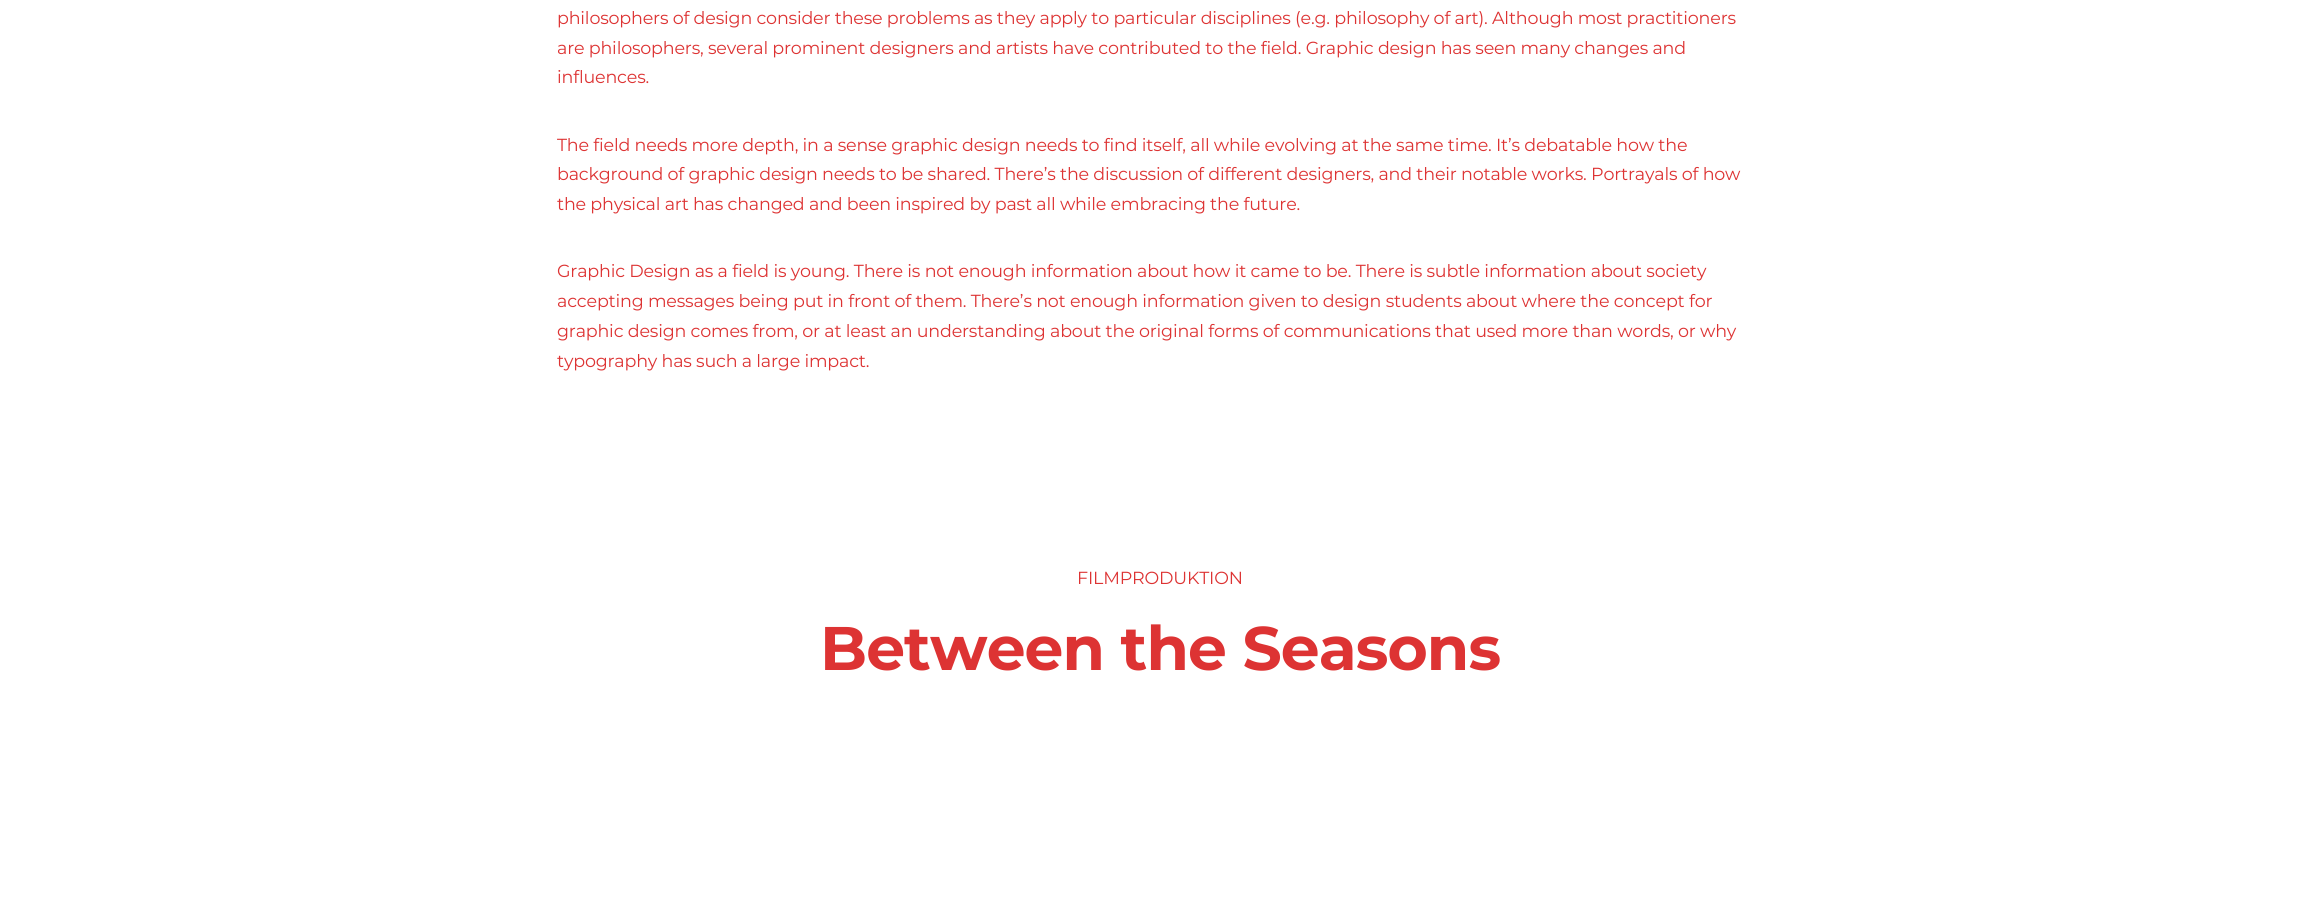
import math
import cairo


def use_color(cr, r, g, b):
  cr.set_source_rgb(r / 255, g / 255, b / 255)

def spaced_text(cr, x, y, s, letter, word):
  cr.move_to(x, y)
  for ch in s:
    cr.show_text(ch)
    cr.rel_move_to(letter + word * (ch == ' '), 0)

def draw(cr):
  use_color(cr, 255, 255, 255)
  cr.paint()
  cr.select_font_face("Montserrat")
  cr.set_font_size(17.5)
  use_color(cr, 221, 51, 51)
  spaced_text(cr, 557, 24, "philosophers of design consider these problems as they apply to particular disciplines (e.g. philosophy of art). Although most practitioners", -0.18, 0)
  spaced_text(cr, 557, 54, "are philosophers, several prominent designers and artists have contributed to the field. Graphic design has seen many changes and", -0.18, 0)
  spaced_text(cr, 557, 83, "influences.", -0.18, 0)
  spaced_text(cr, 557, 151, "The field needs more depth, in a sense graphic design needs to find itself, all while evolving at the same time. It’s debatable how the", -0.18, 0)
  spaced_text(cr, 557, 180, "background of graphic design needs to be shared. There’s the discussion of different designers, and their notable works. Portrayals of how", -0.18, 0)
  spaced_text(cr, 557, 210, "the physical art has changed and been inspired by past all while embracing the future.", -0.18, 0)
  spaced_text(cr, 557, 277, "Graphic Design as a field is young. There is not enough information about how it came to be. There is subtle information about society", -0.18, 0)
  spaced_text(cr, 557, 307, "accepting messages being put in front of them. There’s not enough information given to design students about where the concept for", -0.18, 0)
  spaced_text(cr, 557, 337, "graphic design comes from, or at least an understanding about the original forms of communications that used more than words, or why", -0.18, 0)
  spaced_text(cr, 557, 367, "typography has such a large impact.", -0.18, 0)
  spaced_text(cr, 1077, 584, "FILMPRODUKTION", -0.18, 0)
  cr.select_font_face("Montserrat", cairo.FONT_SLANT_NORMAL, cairo.FONT_WEIGHT_BOLD)
  cr.set_font_size(61.5)
  spaced_text(cr, 820, 670, "Between the Seasons", -0.9, 0)


surface = cairo.ImageSurface(cairo.FORMAT_RGB24, 2319, 913)
cr = cairo.Context(surface)
options = cairo.FontOptions()
options.set_hint_metrics(cairo.HINT_METRICS_OFF)
options.set_hint_style(cairo.HINT_STYLE_NONE)
cr.set_font_options(options)
cr.set_miter_limit(4)
draw(cr)
surface.write_to_png("out.png")
